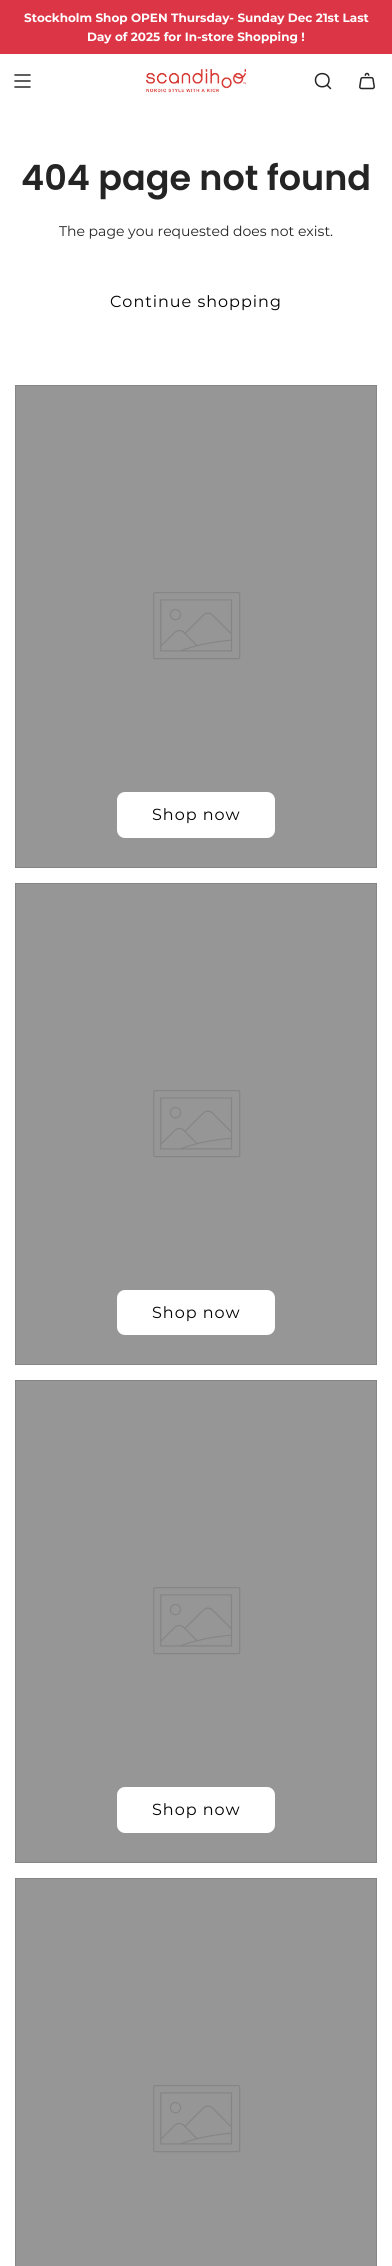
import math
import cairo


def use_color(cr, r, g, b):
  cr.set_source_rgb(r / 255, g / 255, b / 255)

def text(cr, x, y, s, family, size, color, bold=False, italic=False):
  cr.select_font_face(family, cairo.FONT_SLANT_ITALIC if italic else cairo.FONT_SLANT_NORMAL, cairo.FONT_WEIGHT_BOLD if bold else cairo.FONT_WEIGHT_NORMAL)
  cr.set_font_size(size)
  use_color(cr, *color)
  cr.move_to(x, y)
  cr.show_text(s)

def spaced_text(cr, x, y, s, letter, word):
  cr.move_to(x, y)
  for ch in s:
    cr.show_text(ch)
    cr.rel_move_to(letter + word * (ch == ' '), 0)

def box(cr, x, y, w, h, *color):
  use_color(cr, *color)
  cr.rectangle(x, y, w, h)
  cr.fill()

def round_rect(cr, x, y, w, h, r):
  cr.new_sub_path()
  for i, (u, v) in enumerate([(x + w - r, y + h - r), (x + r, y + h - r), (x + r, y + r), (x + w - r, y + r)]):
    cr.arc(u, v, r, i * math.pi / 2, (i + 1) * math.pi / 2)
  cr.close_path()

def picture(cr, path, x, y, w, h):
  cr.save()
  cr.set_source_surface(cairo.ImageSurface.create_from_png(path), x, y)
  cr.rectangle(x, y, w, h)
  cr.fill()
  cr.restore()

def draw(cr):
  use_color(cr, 255, 255, 255)
  cr.paint()
  box(cr, 0, 0, 392, 54, 220, 53, 69)
  cr.new_path()
  cr.move_to(15, 75)
  cr.line_to(30, 75)
  cr.move_to(15, 81)
  cr.line_to(30, 81)
  cr.move_to(15, 87)
  cr.line_to(30, 87)
  use_color(cr, 36, 36, 36)
  cr.set_line_width(1.5)
  cr.set_line_cap(cairo.LINE_CAP_ROUND)
  cr.set_line_join(cairo.LINE_JOIN_ROUND)
  cr.stroke()
  picture(cr, "img_01.png", 146, 69, 100, 24)
  cr.new_path()
  cr.move_to(327, 85)
  cr.line_to(330.5, 88.5)
  cr.move_to(315.5, 80)
  cr.curve_to(315.5, 89, 329, 89, 329, 80)
  cr.curve_to(329, 71.5, 315.5, 71.5, 315.5, 80)
  cr.close_path()
  cr.stroke()
  picture(cr, "img_02.png", 359, 72, 16, 18)
  use_color(cr, 150, 150, 150)
  cr.rectangle(15.5, 385.5, 361, 482)
  cr.fill_preserve()
  use_color(cr, 133, 133, 133)
  cr.set_line_width(1)
  cr.set_line_cap(cairo.LINE_CAP_BUTT)
  cr.set_line_join(cairo.LINE_JOIN_MITER)
  cr.stroke()
  picture(cr, "img_03.png", 153, 592, 88, 68)
  use_color(cr, 255, 255, 255)
  round_rect(cr, 117, 792, 158, 46, 8)
  cr.fill()
  use_color(cr, 150, 150, 150)
  cr.rectangle(15.5, 883.5, 361, 481)
  cr.fill_preserve()
  use_color(cr, 133, 133, 133)
  cr.stroke()
  picture(cr, "img_03.png", 153, 1090, 88, 68)
  use_color(cr, 255, 255, 255)
  round_rect(cr, 117, 1290, 158, 45, 8)
  cr.fill()
  use_color(cr, 150, 150, 150)
  cr.rectangle(15.5, 1380.5, 361, 482)
  cr.fill_preserve()
  use_color(cr, 133, 133, 133)
  cr.stroke()
  picture(cr, "img_03.png", 153, 1587, 88, 68)
  use_color(cr, 255, 255, 255)
  round_rect(cr, 117, 1787, 158, 46, 8)
  cr.fill()
  use_color(cr, 150, 150, 150)
  cr.rectangle(15.5, 1878.5, 361, 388)
  cr.fill_preserve()
  use_color(cr, 133, 133, 133)
  cr.stroke()
  picture(cr, "img_03.png", 153, 2085, 88, 68)
  text(cr, 24, 22, "Stockholm Shop OPEN Thursday- Sunday Dec 21st Last", "Montserrat", 12, (255, 255, 255), bold=True)
  text(cr, 87, 41, "Day of 2025 for In-store Shopping !", "Montserrat", 12, (255, 255, 255), bold=True)
  text(cr, 21, 190, "404 page not found", "Poppins SemiBold", 35, (36, 36, 36))
  text(cr, 59, 236, "The page you requested does not exist.", "Montserrat", 14, (36, 36, 36))
  cr.set_font_size(16)
  use_color(cr, 0, 0, 0)
  spaced_text(cr, 110, 307, "Continue shopping", 1, 0)
  spaced_text(cr, 152, 820, "Shop now", 1, 0)
  spaced_text(cr, 152, 1318, "Shop now", 1, 0)
  spaced_text(cr, 152, 1815, "Shop now", 1, 0)


surface = cairo.ImageSurface(cairo.FORMAT_RGB24, 392, 2266)
cr = cairo.Context(surface)
options = cairo.FontOptions()
options.set_hint_metrics(cairo.HINT_METRICS_OFF)
options.set_hint_style(cairo.HINT_STYLE_NONE)
cr.set_font_options(options)
cr.set_miter_limit(4)
draw(cr)
surface.write_to_png("out.png")
